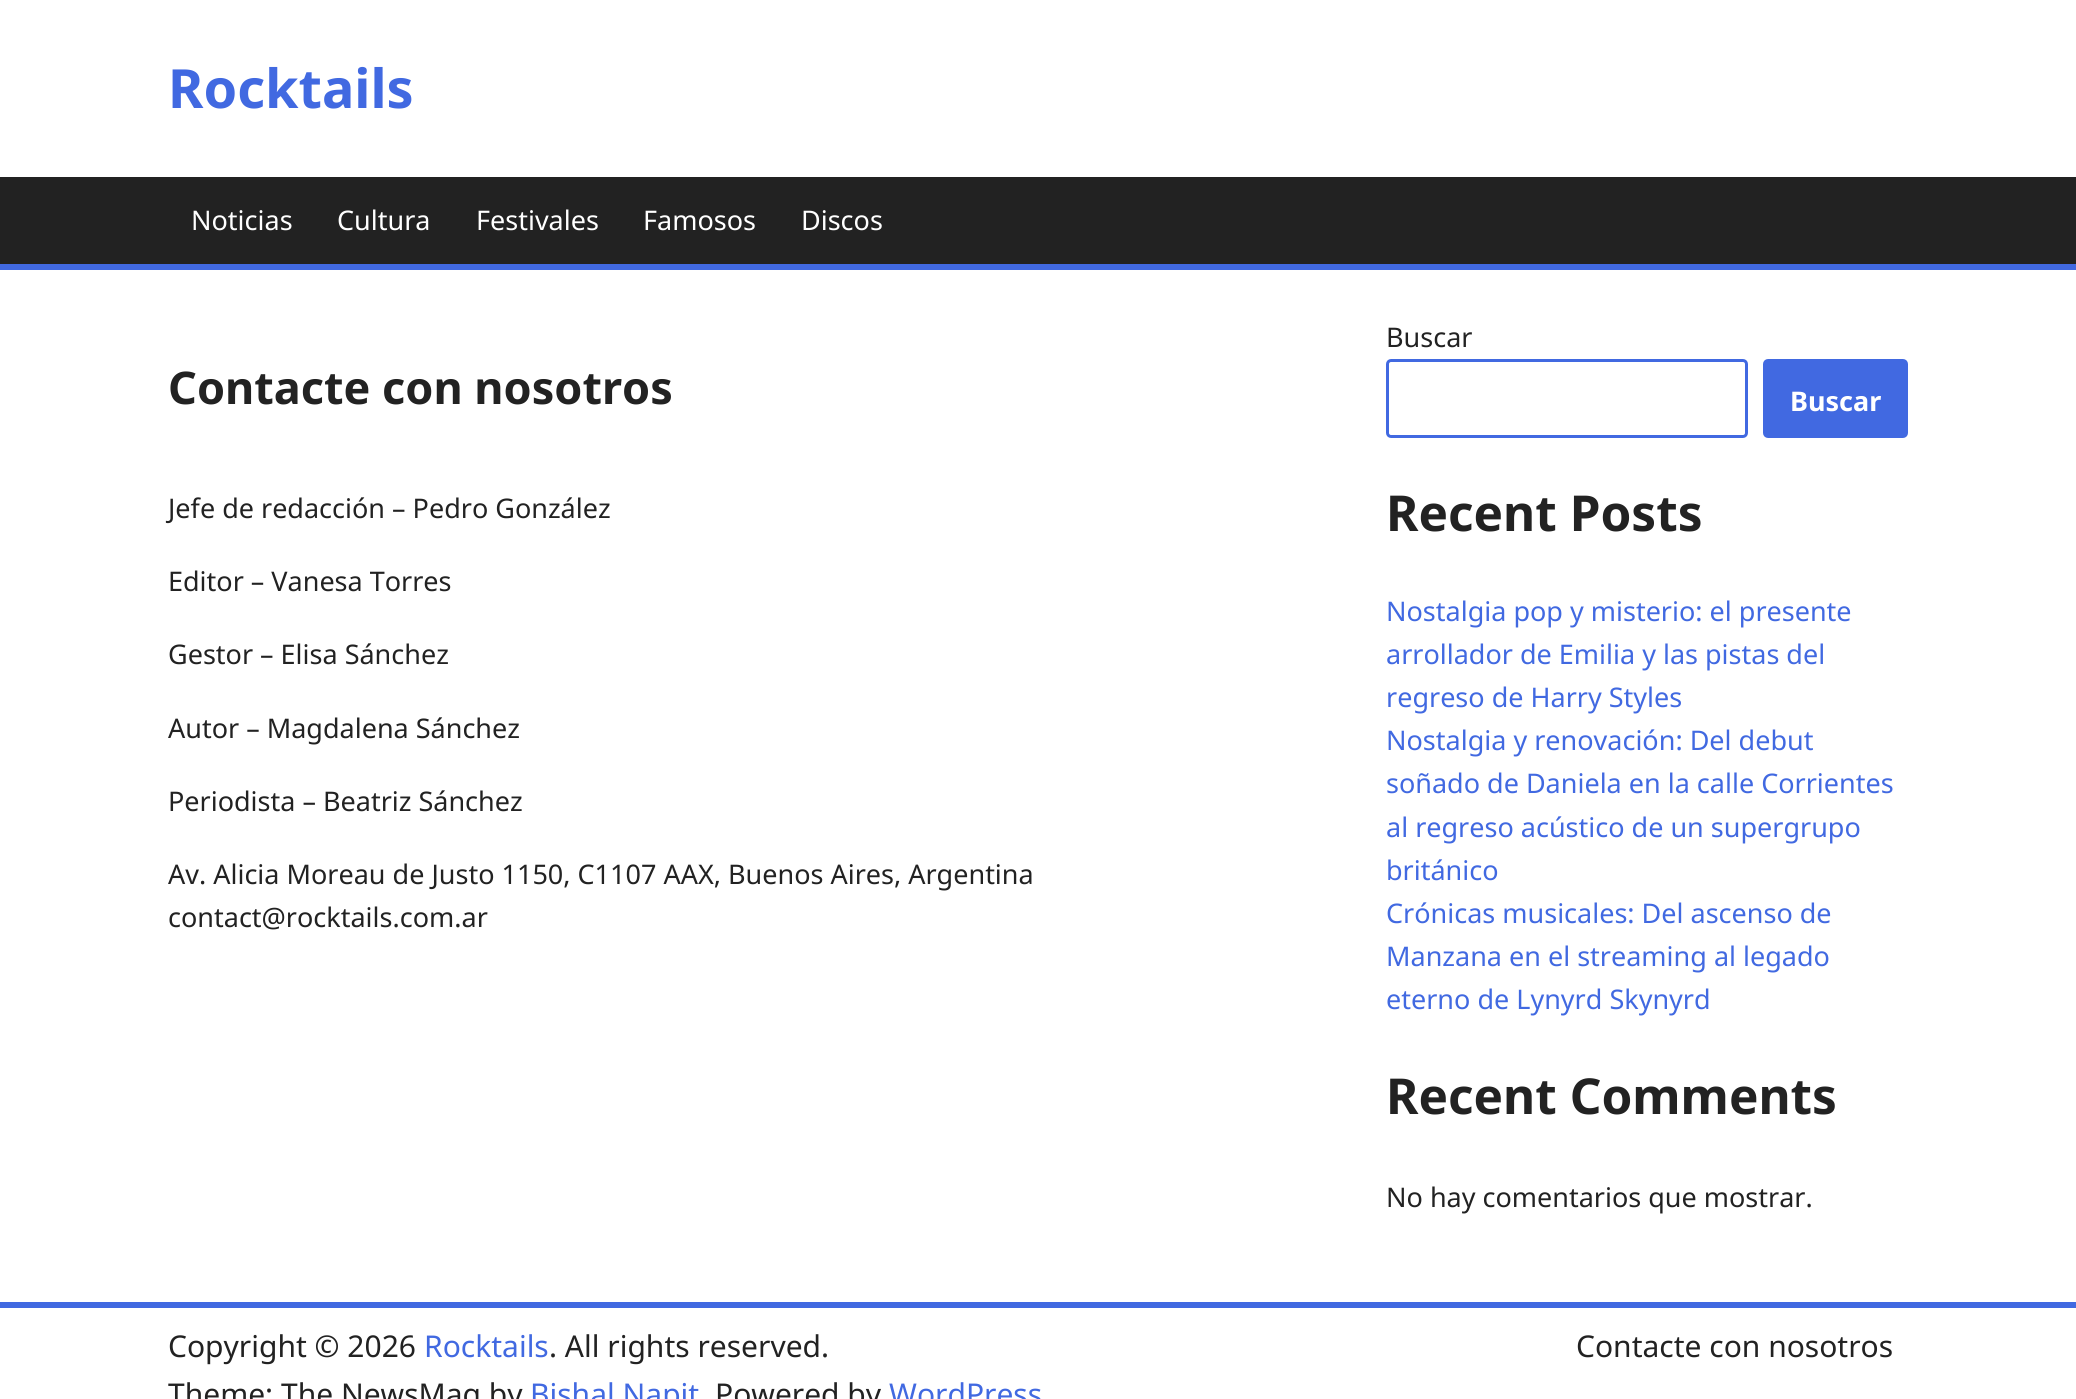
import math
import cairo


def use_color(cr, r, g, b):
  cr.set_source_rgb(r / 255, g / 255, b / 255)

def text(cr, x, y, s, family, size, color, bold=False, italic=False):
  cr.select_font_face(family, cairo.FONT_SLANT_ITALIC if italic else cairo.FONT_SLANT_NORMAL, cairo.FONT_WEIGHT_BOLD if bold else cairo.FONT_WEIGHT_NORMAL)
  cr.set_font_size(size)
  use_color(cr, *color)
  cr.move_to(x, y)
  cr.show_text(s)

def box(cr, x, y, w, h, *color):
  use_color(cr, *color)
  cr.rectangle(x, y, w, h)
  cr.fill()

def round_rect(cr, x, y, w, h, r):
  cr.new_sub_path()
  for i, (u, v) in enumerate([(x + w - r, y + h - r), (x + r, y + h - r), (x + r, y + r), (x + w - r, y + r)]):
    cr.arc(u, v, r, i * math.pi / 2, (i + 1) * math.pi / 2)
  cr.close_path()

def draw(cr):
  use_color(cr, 255, 255, 255)
  cr.paint()
  box(cr, 0, 177, 2076, 87, 34, 34, 34)
  box(cr, 0, 264, 2076, 6, 65, 105, 225)
  round_rect(cr, 1387.5, 360.5, 359, 76, 3.5)
  cr.set_line_width(3)
  cr.stroke()
  round_rect(cr, 1764.5, 360.5, 142, 76, 3.5)
  cr.fill_preserve()
  cr.stroke()
  box(cr, 0, 1302, 2076, 6, 65, 105, 225)
  text(cr, 168, 108, "Rocktails", "Noto Sans", 54, (65, 105, 225), bold=True)
  text(cr, 191, 230, "Noticias", "Noto Sans", 27, (255, 255, 255))
  text(cr, 337, 230, "Cultura", "Noto Sans", 27, (255, 255, 255))
  text(cr, 476, 230, "Festivales", "Noto Sans", 27, (255, 255, 255))
  text(cr, 643, 230, "Famosos", "Noto Sans", 27, (255, 255, 255))
  text(cr, 801, 230, "Discos", "Noto Sans", 27, (255, 255, 255))
  text(cr, 168, 404, "Contacte con nosotros", "Noto Sans", 45, (34, 34, 34), bold=True)
  text(cr, 168, 518, "Jefe de redacción – Pedro González", "Noto Sans", 27, (34, 34, 34))
  text(cr, 168, 591, "Editor – Vanesa Torres", "Noto Sans", 27, (34, 34, 34))
  text(cr, 168, 664, "Gestor – Elisa Sánchez", "Noto Sans", 27, (34, 34, 34))
  text(cr, 168, 738, "Autor – Magdalena Sánchez", "Noto Sans", 27, (34, 34, 34))
  text(cr, 168, 811, "Periodista – Beatriz Sánchez", "Noto Sans", 27, (34, 34, 34))
  text(cr, 168, 884, "Av. Alicia Moreau de Justo 1150, C1107 AAX, Buenos Aires, Argentina", "Noto Sans", 27, (34, 34, 34))
  text(cr, 168, 927, "contact@rocktails.com.ar", "Noto Sans", 27, (34, 34, 34))
  text(cr, 1386, 347, "Buscar", "Noto Sans", 27, (34, 34, 34))
  text(cr, 1790, 411, "Buscar", "Noto Sans", 27, (255, 255, 255), bold=True)
  text(cr, 1386, 531, "Recent Posts", "Noto Sans", 49.5, (34, 34, 34), bold=True)
  text(cr, 1386, 621, "Nostalgia pop y misterio: el presente", "Noto Sans", 27, (65, 105, 225))
  text(cr, 1386, 664, "arrollador de Emilia y las pistas del", "Noto Sans", 27, (65, 105, 225))
  text(cr, 1386, 707, "regreso de Harry Styles", "Noto Sans", 27, (65, 105, 225))
  text(cr, 1386, 750, "Nostalgia y renovación: Del debut", "Noto Sans", 27, (65, 105, 225))
  text(cr, 1386, 793, "soñado de Daniela en la calle Corrientes", "Noto Sans", 27, (65, 105, 225))
  text(cr, 1386, 837, "al regreso acústico de un supergrupo", "Noto Sans", 27, (65, 105, 225))
  text(cr, 1386, 880, "británico", "Noto Sans", 27, (65, 105, 225))
  text(cr, 1386, 923, "Crónicas musicales: Del ascenso de", "Noto Sans", 27, (65, 105, 225))
  text(cr, 1386, 966, "Manzana en el streaming al legado", "Noto Sans", 27, (65, 105, 225))
  text(cr, 1386, 1009, "eterno de Lynyrd Skynyrd", "Noto Sans", 27, (65, 105, 225))
  text(cr, 1386, 1114, "Recent Comments", "Noto Sans", 49.5, (34, 34, 34), bold=True)
  text(cr, 1386, 1207, "No hay comentarios que mostrar.", "Noto Sans", 27, (34, 34, 34))
  text(cr, 168, 1357, "Copyright © 2026", "Noto Sans", 30, (34, 34, 34))
  text(cr, 424, 1357, "Rocktails", "Noto Sans", 30, (65, 105, 225))
  text(cr, 549, 1357, ". All rights reserved.", "Noto Sans", 30, (34, 34, 34))
  text(cr, 168, 1405, "Theme: The NewsMag by", "Noto Sans", 30, (34, 34, 34))
  text(cr, 530, 1405, "Bishal Napit", "Noto Sans", 30, (65, 105, 225))
  text(cr, 715, 1405, "Powered by", "Noto Sans", 30, (34, 34, 34))
  text(cr, 889, 1405, "WordPress", "Noto Sans", 30, (65, 105, 225))
  text(cr, 1576, 1357, "Contacte con nosotros", "Noto Sans", 30, (34, 34, 34))


surface = cairo.ImageSurface(cairo.FORMAT_RGB24, 2076, 1399)
cr = cairo.Context(surface)
options = cairo.FontOptions()
options.set_hint_metrics(cairo.HINT_METRICS_OFF)
options.set_hint_style(cairo.HINT_STYLE_NONE)
cr.set_font_options(options)
cr.set_miter_limit(4)
draw(cr)
surface.write_to_png("out.png")
